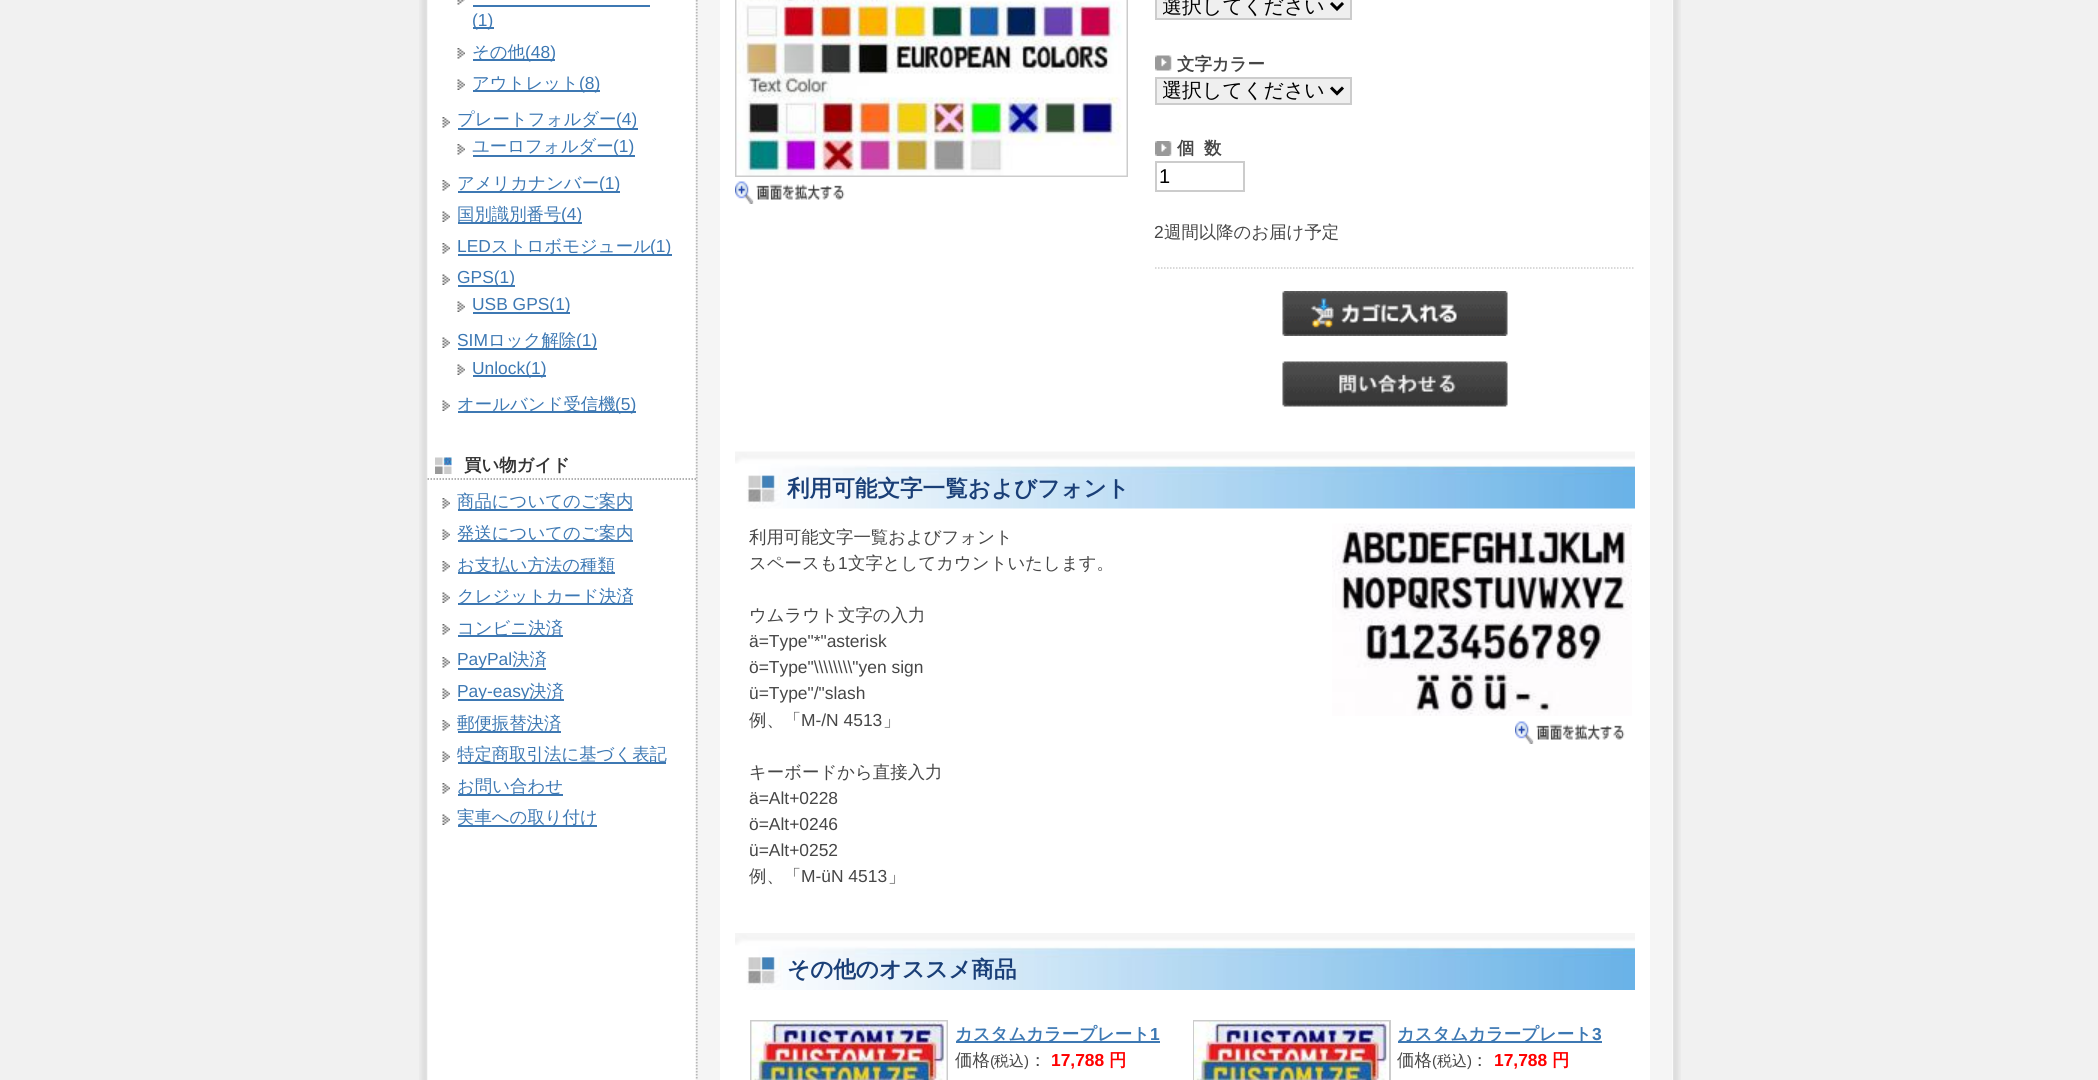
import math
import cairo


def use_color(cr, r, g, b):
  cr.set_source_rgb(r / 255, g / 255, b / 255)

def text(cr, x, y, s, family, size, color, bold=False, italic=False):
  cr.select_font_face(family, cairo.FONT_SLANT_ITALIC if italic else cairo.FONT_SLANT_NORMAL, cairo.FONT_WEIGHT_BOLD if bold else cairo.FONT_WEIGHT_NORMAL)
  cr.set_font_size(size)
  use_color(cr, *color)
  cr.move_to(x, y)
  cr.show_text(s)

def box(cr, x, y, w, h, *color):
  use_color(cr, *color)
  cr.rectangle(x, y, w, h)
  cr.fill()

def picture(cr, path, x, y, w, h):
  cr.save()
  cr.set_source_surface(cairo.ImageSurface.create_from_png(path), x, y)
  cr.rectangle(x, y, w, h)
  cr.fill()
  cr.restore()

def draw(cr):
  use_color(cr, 241, 241, 241)
  cr.paint()
  picture(cr, "img_01.png", 419, 0, 1262, 1080)
  box(cr, 1672, 0, 1, 1080, 255, 255, 255)
  picture(cr, "img_02.png", 427, 0, 1246, 1080)
  picture(cr, "img_03.png", 457, 0, 8, 5)
  box(cr, 473, 5, 177, 2, 61, 120, 179)
  box(cr, 473, 27, 21, 2, 61, 120, 179)
  picture(cr, "img_04.png", 457, 48, 8, 11)
  box(cr, 473, 59, 82, 2, 61, 120, 179)
  picture(cr, "img_05.png", 457, 79, 8, 11)
  box(cr, 473, 90, 127, 2, 61, 120, 179)
  picture(cr, "img_04.png", 442, 117, 8, 11)
  box(cr, 458, 128, 180, 2, 61, 120, 179)
  picture(cr, "img_04.png", 457, 144, 8, 11)
  box(cr, 473, 155, 162, 2, 61, 120, 179)
  picture(cr, "img_04.png", 442, 180, 8, 11)
  box(cr, 458, 191, 162, 2, 61, 120, 179)
  picture(cr, "img_05.png", 442, 211, 8, 11)
  box(cr, 458, 222, 124, 2, 61, 120, 179)
  picture(cr, "img_04.png", 442, 243, 8, 11)
  box(cr, 458, 254, 214, 2, 61, 120, 179)
  picture(cr, "img_05.png", 442, 274, 8, 11)
  box(cr, 458, 285, 57, 2, 61, 120, 179)
  picture(cr, "img_05.png", 457, 301, 8, 11)
  box(cr, 473, 312, 97, 2, 61, 120, 179)
  picture(cr, "img_05.png", 442, 337, 8, 11)
  box(cr, 458, 348, 139, 2, 61, 120, 179)
  picture(cr, "img_05.png", 457, 364, 8, 11)
  box(cr, 473, 375, 73, 2, 61, 120, 179)
  picture(cr, "img_05.png", 442, 400, 8, 11)
  box(cr, 458, 411, 178, 2, 61, 120, 179)
  picture(cr, "img_06.png", 435, 457, 17, 17)
  cr.new_path()
  cr.move_to(427.5, 479)
  cr.line_to(697.5, 479)
  use_color(cr, 153, 153, 153)
  cr.set_line_width(1.5)
  cr.set_dash([1.5, 1.5])
  cr.stroke()
  picture(cr, "img_04.png", 442, 498, 8, 11)
  box(cr, 458, 509, 175, 2, 61, 120, 179)
  picture(cr, "img_05.png", 442, 529, 8, 11)
  box(cr, 458, 540, 175, 2, 61, 120, 179)
  picture(cr, "img_04.png", 442, 561, 8, 11)
  box(cr, 458, 572, 157, 2, 61, 120, 179)
  picture(cr, "img_05.png", 442, 592, 8, 11)
  box(cr, 458, 603, 175, 2, 61, 120, 179)
  picture(cr, "img_04.png", 442, 624, 8, 11)
  box(cr, 458, 635, 105, 2, 61, 120, 179)
  picture(cr, "img_04.png", 442, 657, 8, 11)
  box(cr, 458, 668, 88, 2, 61, 120, 179)
  picture(cr, "img_05.png", 442, 688, 8, 11)
  box(cr, 458, 699, 106, 2, 61, 120, 179)
  picture(cr, "img_04.png", 442, 720, 8, 11)
  box(cr, 458, 731, 103, 2, 61, 120, 179)
  picture(cr, "img_05.png", 442, 751, 8, 11)
  box(cr, 458, 762, 208, 2, 61, 120, 179)
  picture(cr, "img_04.png", 442, 783, 8, 11)
  box(cr, 458, 794, 105, 2, 61, 120, 179)
  picture(cr, "img_05.png", 442, 814, 8, 11)
  box(cr, 458, 825, 139, 2, 61, 120, 179)
  box(cr, 720, 0, 930, 1080, 255, 255, 255)
  cr.rectangle(736, -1, 391, 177)
  use_color(cr, 204, 204, 204)
  cr.set_line_width(2)
  cr.set_dash([])
  cr.stroke()
  picture(cr, "img_07.png", 736, 0, 391, 176)
  picture(cr, "img_08.png", 735, 181, 110, 23)
  use_color(cr, 239, 239, 239)
  cr.rectangle(1156, -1, 195, 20)
  cr.fill_preserve()
  use_color(cr, 204, 204, 204)
  cr.stroke()
  cr.new_path()
  cr.move_to(1331, 3)
  cr.line_to(1337, 9)
  cr.line_to(1343, 3)
  use_color(cr, 0, 0, 0)
  cr.set_line_width(3)
  cr.stroke()
  picture(cr, "img_09.png", 1155, 55, 17, 16)
  use_color(cr, 239, 239, 239)
  cr.rectangle(1156, 78, 195, 26)
  cr.fill_preserve()
  use_color(cr, 204, 204, 204)
  cr.set_line_width(2)
  cr.stroke()
  cr.new_path()
  cr.move_to(1331, 87.5)
  cr.line_to(1337, 93.5)
  cr.line_to(1343, 87.5)
  use_color(cr, 0, 0, 0)
  cr.set_line_width(3)
  cr.stroke()
  picture(cr, "img_10.png", 1155, 141, 17, 15)
  cr.rectangle(1156, 162, 88, 29)
  use_color(cr, 204, 204, 204)
  cr.set_line_width(2)
  cr.stroke()
  cr.new_path()
  cr.move_to(1155, 268)
  cr.line_to(1635, 268)
  cr.set_line_width(1.5)
  cr.set_dash([1.5, 1.5])
  cr.stroke()
  picture(cr, "img_11.png", 1282, 291, 226, 45)
  picture(cr, "img_12.png", 1282, 361, 226, 46)
  picture(cr, "img_13.png", 735, 451, 900, 58)
  picture(cr, "img_14.png", 1332, 523, 300, 193)
  picture(cr, "img_15.png", 1515, 721, 110, 23)
  picture(cr, "img_16.png", 735, 933, 900, 57)
  cr.rectangle(751, 1021, 196, 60)
  cr.set_line_width(2)
  cr.set_dash([])
  cr.stroke()
  picture(cr, "img_17.png", 751, 1021, 196, 59)
  box(cr, 956, 1041, 204, 2, 61, 120, 179)
  cr.rectangle(1194, 1021, 196, 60)
  use_color(cr, 204, 204, 204)
  cr.stroke()
  picture(cr, "img_18.png", 1194, 1021, 195, 59)
  box(cr, 1398, 1041, 204, 2, 61, 120, 179)
  text(cr, 472, 26, "(1)", "Liberation Sans", 17.4, (61, 120, 179))
  text(cr, 472, 58, "その他", "WenQuanYi Zen Hei Medium", 17.4, (61, 120, 179))
  text(cr, 525, 58, "(48)", "Liberation Sans", 17.4, (61, 120, 179))
  text(cr, 472, 89, "アウトレット", "WenQuanYi Zen Hei Medium", 17.4, (61, 120, 179))
  text(cr, 579, 89, "(8)", "Liberation Sans", 17.4, (61, 120, 179))
  text(cr, 457, 125, "プレートフォルダー", "WenQuanYi Zen Hei Medium", 17.4, (61, 120, 179))
  text(cr, 616, 125, "(4)", "Liberation Sans", 17.4, (61, 120, 179))
  text(cr, 472, 152, "ユーロフォルダー", "WenQuanYi Zen Hei Medium", 17.4, (61, 120, 179))
  text(cr, 613, 152, "(1)", "Liberation Sans", 17.4, (61, 120, 179))
  text(cr, 457, 189, "アメリカナンバー", "WenQuanYi Zen Hei Medium", 17.4, (61, 120, 179))
  text(cr, 599, 189, "(1)", "Liberation Sans", 17.4, (61, 120, 179))
  text(cr, 457, 220, "国別識別番号", "WenQuanYi Zen Hei Medium", 17.4, (61, 120, 179))
  text(cr, 561, 220, "(4)", "Liberation Sans", 17.4, (61, 120, 179))
  text(cr, 457, 252, "LED", "Liberation Sans", 17.4, (61, 120, 179))
  text(cr, 491, 252, "ストロボモジュール", "WenQuanYi Zen Hei Medium", 17.4, (61, 120, 179))
  text(cr, 650, 252, "(1)", "Liberation Sans", 17.4, (61, 120, 179))
  text(cr, 457, 283, "GPS(1)", "Liberation Sans", 17.4, (61, 120, 179))
  text(cr, 472, 310, "USB GPS(1)", "Liberation Sans", 17.4, (61, 120, 179))
  text(cr, 457, 346, "SIM", "Liberation Sans", 17.4, (61, 120, 179))
  text(cr, 488, 346, "ロック解除", "WenQuanYi Zen Hei Medium", 17.4, (61, 120, 179))
  text(cr, 576, 346, "(1)", "Liberation Sans", 17.4, (61, 120, 179))
  text(cr, 472, 374, "Unlock(1)", "Liberation Sans", 17.4, (61, 120, 179))
  text(cr, 457, 410, "オールバンド受信機", "WenQuanYi Zen Hei Medium", 17.4, (61, 120, 179))
  text(cr, 615, 410, "(5)", "Liberation Sans", 17.4, (61, 120, 179))
  text(cr, 464, 471, "買い物ガイド", "WenQuanYi Zen Hei", 17.4, (51, 51, 51), bold=True)
  text(cr, 457, 507, "商品についてのご案内", "WenQuanYi Zen Hei Medium", 17.4, (61, 120, 179))
  text(cr, 457, 539, "発送についてのご案内", "WenQuanYi Zen Hei Medium", 17.4, (61, 120, 179))
  text(cr, 457, 571, "お支払い方法の種類", "WenQuanYi Zen Hei Medium", 17.4, (61, 120, 179))
  text(cr, 457, 602, "クレジットカード決済", "WenQuanYi Zen Hei Medium", 17.4, (61, 120, 179))
  text(cr, 457, 634, "コンビニ決済", "WenQuanYi Zen Hei Medium", 17.4, (61, 120, 179))
  text(cr, 457, 665, "PayPal", "Liberation Sans", 17.4, (61, 120, 179))
  text(cr, 512, 665, "決済", "WenQuanYi Zen Hei Medium", 17.4, (61, 120, 179))
  text(cr, 457, 697, "Pay-easy", "Liberation Sans", 17.4, (61, 120, 179))
  text(cr, 529, 697, "決済", "WenQuanYi Zen Hei Medium", 17.4, (61, 120, 179))
  text(cr, 457, 729, "郵便振替決済", "WenQuanYi Zen Hei Medium", 17.4, (61, 120, 179))
  text(cr, 457, 760, "特定商取引法に基づく表記", "WenQuanYi Zen Hei Medium", 17.4, (61, 120, 179))
  text(cr, 457, 792, "お問い合わせ", "WenQuanYi Zen Hei Medium", 17.4, (61, 120, 179))
  text(cr, 457, 823, "実車への取り付け", "WenQuanYi Zen Hei Medium", 17.4, (61, 120, 179))
  cr.save()
  cr.rectangle(1163, 0, 163, 18)
  cr.clip()
  text(cr, 1162, 13, "選択してください", "WenQuanYi Zen Hei Medium", 20, (0, 0, 0))
  cr.restore()
  text(cr, 1177, 70, "文字カラー", "WenQuanYi Zen Hei", 17.4, (70, 70, 70), bold=True)
  cr.save()
  cr.rectangle(1163, 78, 163, 26)
  cr.clip()
  text(cr, 1162, 97, "選択してください", "WenQuanYi Zen Hei Medium", 20, (0, 0, 0))
  cr.restore()
  text(cr, 1177, 154, "個", "WenQuanYi Zen Hei", 17.4, (70, 70, 70), bold=True)
  text(cr, 1204, 154, "数", "WenQuanYi Zen Hei", 17.4, (70, 70, 70), bold=True)
  text(cr, 1159, 183, "1", "Liberation Sans", 20, (0, 0, 0))
  text(cr, 1154, 238, "2", "Liberation Sans", 17.4, (70, 70, 70))
  text(cr, 1164, 238, "週間以降のお届け予定", "WenQuanYi Zen Hei Medium", 17.4, (70, 70, 70))
  text(cr, 787, 496, "利用可能文字一覧およびフォント", "WenQuanYi Zen Hei", 22.6, (26, 63, 119), bold=True)
  text(cr, 749, 543, "利用可能文字一覧およびフォント", "WenQuanYi Zen Hei Medium", 17.4, (70, 70, 70))
  text(cr, 749, 569, "スペースも", "WenQuanYi Zen Hei Medium", 17.4, (70, 70, 70))
  text(cr, 838, 569, "1", "Liberation Sans", 17.4, (70, 70, 70))
  text(cr, 848, 569, "文字としてカウントいたします。", "WenQuanYi Zen Hei Medium", 17.4, (70, 70, 70))
  text(cr, 749, 621, "ウムラウト文字の入力", "WenQuanYi Zen Hei Medium", 17.4, (70, 70, 70))
  text(cr, 749, 647, "ä=Type\"*\"asterisk", "Liberation Sans", 17.4, (70, 70, 70))
  text(cr, 749, 673, "ö=Type\"\\\\\\\\\\\\\\\\\"yen sign", "Liberation Sans", 17.4, (70, 70, 70))
  text(cr, 749, 699, "ü=Type\"/\"slash", "Liberation Sans", 17.4, (70, 70, 70))
  text(cr, 749, 726, "例、「", "WenQuanYi Zen Hei Medium", 17.4, (70, 70, 70))
  text(cr, 801, 726, "M-/N 4513", "Liberation Sans", 17.4, (70, 70, 70))
  text(cr, 883, 726, "」", "WenQuanYi Zen Hei Medium", 17.4, (70, 70, 70))
  text(cr, 749, 778, "キーボードから直接入力", "WenQuanYi Zen Hei Medium", 17.4, (70, 70, 70))
  text(cr, 749, 804, "ä=Alt+0228", "Liberation Sans", 17.4, (70, 70, 70))
  text(cr, 749, 830, "ö=Alt+0246", "Liberation Sans", 17.4, (70, 70, 70))
  text(cr, 749, 856, "ü=Alt+0252", "Liberation Sans", 17.4, (70, 70, 70))
  text(cr, 749, 882, "例、「", "WenQuanYi Zen Hei Medium", 17.4, (70, 70, 70))
  text(cr, 801, 882, "M-üN 4513", "Liberation Sans", 17.4, (70, 70, 70))
  text(cr, 888, 882, "」", "WenQuanYi Zen Hei Medium", 17.4, (70, 70, 70))
  text(cr, 787, 977, "その他のオススメ商品", "WenQuanYi Zen Hei", 22.6, (26, 63, 119), bold=True)
  text(cr, 955, 1040, "カスタムカラープレート", "WenQuanYi Zen Hei", 17.4, (61, 120, 179), bold=True)
  text(cr, 1150, 1040, "1", "Liberation Sans", 17.4, (61, 120, 179), bold=True)
  text(cr, 955, 1066, "価格", "WenQuanYi Zen Hei Medium", 17.4, (70, 70, 70))
  text(cr, 990, 1066, "(", "Liberation Sans", 15, (70, 70, 70))
  text(cr, 994, 1066, "税込", "WenQuanYi Zen Hei Medium", 15, (70, 70, 70))
  text(cr, 1024, 1066, ")", "Liberation Sans", 15, (70, 70, 70))
  text(cr, 1029, 1066, "：", "WenQuanYi Zen Hei Medium", 17.4, (70, 70, 70))
  text(cr, 1051, 1066, "17,788", "Liberation Sans", 17.4, (255, 0, 0), bold=True)
  text(cr, 1109, 1066, "円", "WenQuanYi Zen Hei", 17.4, (255, 0, 0), bold=True)
  text(cr, 1397, 1040, "カスタムカラープレート", "WenQuanYi Zen Hei", 17.4, (61, 120, 179), bold=True)
  text(cr, 1592, 1040, "3", "Liberation Sans", 17.4, (61, 120, 179), bold=True)
  text(cr, 1397, 1066, "価格", "WenQuanYi Zen Hei Medium", 17.4, (70, 70, 70))
  text(cr, 1432, 1066, "(", "Liberation Sans", 15, (70, 70, 70))
  text(cr, 1437, 1066, "税込", "WenQuanYi Zen Hei Medium", 15, (70, 70, 70))
  text(cr, 1467, 1066, ")", "Liberation Sans", 15, (70, 70, 70))
  text(cr, 1471, 1066, "：", "WenQuanYi Zen Hei Medium", 17.4, (70, 70, 70))
  text(cr, 1494, 1066, "17,788", "Liberation Sans", 17.4, (255, 0, 0), bold=True)
  text(cr, 1552, 1066, "円", "WenQuanYi Zen Hei", 17.4, (255, 0, 0), bold=True)


surface = cairo.ImageSurface(cairo.FORMAT_RGB24, 2098, 1080)
cr = cairo.Context(surface)
options = cairo.FontOptions()
options.set_hint_metrics(cairo.HINT_METRICS_OFF)
options.set_hint_style(cairo.HINT_STYLE_NONE)
cr.set_font_options(options)
cr.set_miter_limit(4)
draw(cr)
surface.write_to_png("out.png")
